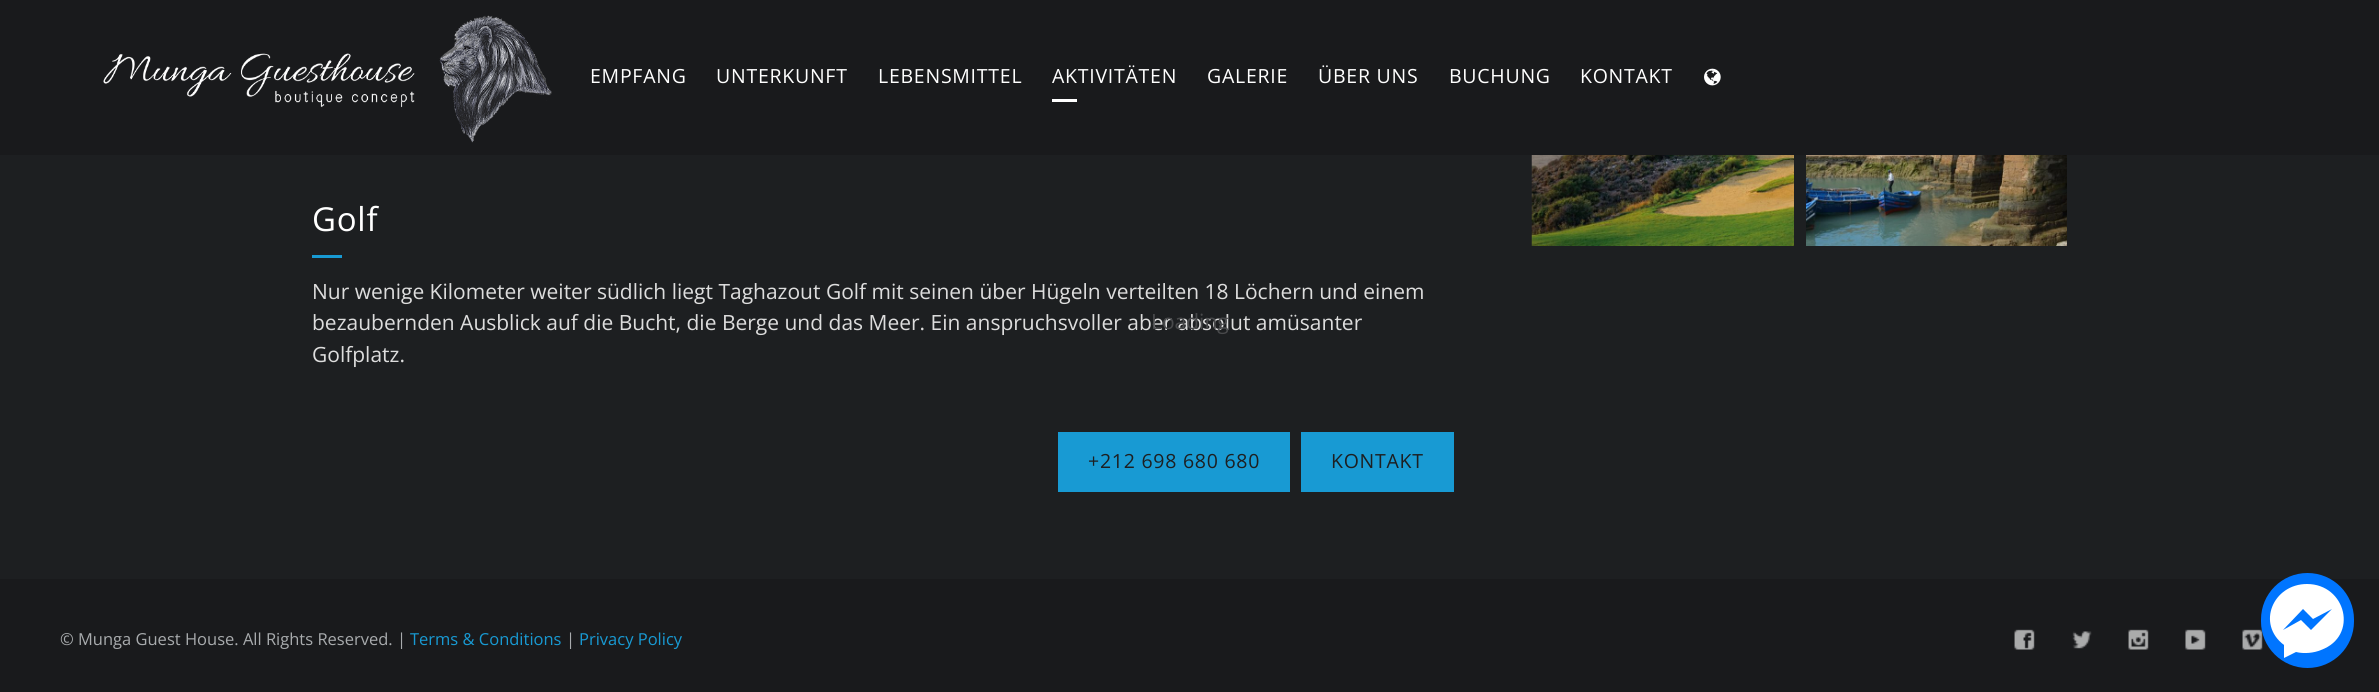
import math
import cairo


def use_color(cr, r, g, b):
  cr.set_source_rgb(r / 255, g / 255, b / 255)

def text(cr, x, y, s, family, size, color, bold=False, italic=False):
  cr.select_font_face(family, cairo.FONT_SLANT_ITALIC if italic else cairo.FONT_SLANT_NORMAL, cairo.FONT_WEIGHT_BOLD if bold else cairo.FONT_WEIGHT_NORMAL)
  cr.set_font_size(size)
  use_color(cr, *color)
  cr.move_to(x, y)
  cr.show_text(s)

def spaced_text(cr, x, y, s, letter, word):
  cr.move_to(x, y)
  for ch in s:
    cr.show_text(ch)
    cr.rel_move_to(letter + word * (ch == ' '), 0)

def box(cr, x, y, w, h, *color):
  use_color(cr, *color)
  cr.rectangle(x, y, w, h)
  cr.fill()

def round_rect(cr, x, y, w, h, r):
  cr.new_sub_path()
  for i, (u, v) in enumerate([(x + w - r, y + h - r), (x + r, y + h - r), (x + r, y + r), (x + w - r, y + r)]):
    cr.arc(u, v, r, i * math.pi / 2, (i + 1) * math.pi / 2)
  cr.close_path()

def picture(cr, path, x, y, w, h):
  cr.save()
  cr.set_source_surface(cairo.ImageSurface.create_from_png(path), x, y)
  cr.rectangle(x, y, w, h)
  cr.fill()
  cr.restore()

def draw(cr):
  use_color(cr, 29, 31, 33)
  cr.paint()
  box(cr, 0, 0, 2379, 155, 25, 26, 28)
  picture(cr, "img_01.png", 103, 15, 449, 128)
  box(cr, 1052, 99, 25, 3, 255, 255, 255)
  picture(cr, "img_02.png", 1704, 68, 17, 18)
  box(cr, 312, 255, 30, 3, 24, 154, 211)
  box(cr, 1058, 432, 232, 60, 24, 154, 211)
  box(cr, 1301, 432, 153, 60, 24, 154, 211)
  picture(cr, "img_03.png", 1531, 155, 263, 91)
  picture(cr, "img_04.png", 1806, 155, 261, 91)
  box(cr, 0, 579, 2379, 113, 25, 26, 28)
  picture(cr, "img_05.png", 2014, 629, 21, 21)
  picture(cr, "img_06.png", 2072, 631, 20, 18)
  picture(cr, "img_07.png", 2128, 629, 21, 21)
  picture(cr, "img_08.png", 2185, 629, 21, 21)
  picture(cr, "img_09.png", 2242, 629, 21, 21)
  use_color(cr, 0, 117, 255)
  round_rect(cr, 2261, 573, 93, 95, 46.5)
  cr.fill()
  use_color(cr, 255, 255, 255)
  cr.new_path()
  cr.move_to(2307, 584)
  cr.curve_to(2273, 584, 2256, 624, 2284, 645)
  cr.line_to(2284, 658)
  cr.line_to(2296, 652)
  cr.curve_to(2304, 654, 2314, 653, 2321, 650)
  cr.curve_to(2359, 636, 2346, 584, 2307, 584)
  cr.close_path()
  cr.move_to(2311, 630)
  cr.line_to(2301, 620)
  cr.line_to(2283, 630)
  cr.line_to(2303, 609)
  cr.line_to(2313, 619)
  cr.line_to(2332, 609)
  cr.close_path()
  cr.fill()
  cr.select_font_face("Open Sans")
  cr.set_font_size(19.5)
  spaced_text(cr, 590, 83, "EMPFANG", 0.75, 0)
  spaced_text(cr, 716, 83, "UNTERKUNFT", 0.75, 0)
  spaced_text(cr, 878, 83, "LEBENSMITTEL", 0.75, 0)
  spaced_text(cr, 1052, 83, "AKTIVITÄTEN", 0.75, 0)
  spaced_text(cr, 1207, 83, "GALERIE", 0.75, 0)
  spaced_text(cr, 1318, 83, "ÜBER UNS", 0.75, 0)
  spaced_text(cr, 1449, 83, "BUCHUNG", 0.75, 0)
  spaced_text(cr, 1580, 83, "KONTAKT", 0.75, 0)
  cr.set_font_size(33)
  spaced_text(cr, 312, 231, "Golf", 0.75, 0)
  text(cr, 312, 299, "Nur wenige Kilometer weiter südlich liegt Taghazout Golf mit seinen über Hügeln verteilten 18 Löchern und einem", "Open Sans", 21, (221, 221, 221))
  text(cr, 312, 330, "bezaubernden Ausblick auf die Bucht, die Berge und das Meer. Ein anspruchsvoller aber absolut amüsanter", "Open Sans", 21, (221, 221, 221))
  text(cr, 312, 362, "Golfplatz.", "Open Sans", 21, (221, 221, 221))
  cr.set_font_size(19.5)
  use_color(cr, 29, 31, 33)
  spaced_text(cr, 1088, 468, "+212 698 680 680", 0.75, 0)
  spaced_text(cr, 1331, 468, "KONTAKT", 0.75, 0)
  text(cr, 1151, 329, "Loading", "Open Sans", 21, (72, 73, 75))
  text(cr, 60, 645, "© Munga Guest House. All Rights Reserved. |", "Open Sans", 16.5, (168, 171, 173))
  text(cr, 410, 645, "Terms & Conditions", "Open Sans", 16.5, (24, 154, 211))
  text(cr, 566, 645, "|", "Open Sans", 16.5, (168, 171, 173))
  text(cr, 579, 645, "Privacy Policy", "Open Sans", 16.5, (24, 154, 211))


surface = cairo.ImageSurface(cairo.FORMAT_RGB24, 2379, 692)
cr = cairo.Context(surface)
options = cairo.FontOptions()
options.set_hint_metrics(cairo.HINT_METRICS_OFF)
options.set_hint_style(cairo.HINT_STYLE_NONE)
cr.set_font_options(options)
cr.set_miter_limit(4)
draw(cr)
surface.write_to_png("out.png")
